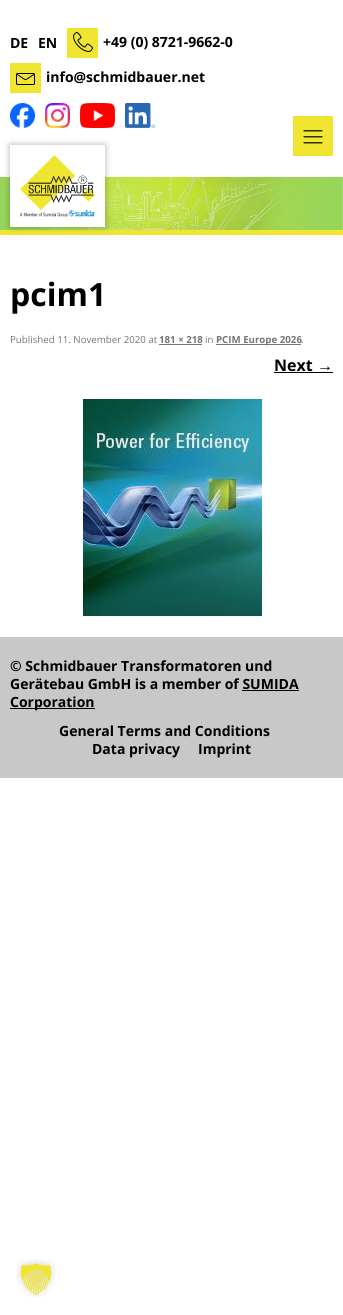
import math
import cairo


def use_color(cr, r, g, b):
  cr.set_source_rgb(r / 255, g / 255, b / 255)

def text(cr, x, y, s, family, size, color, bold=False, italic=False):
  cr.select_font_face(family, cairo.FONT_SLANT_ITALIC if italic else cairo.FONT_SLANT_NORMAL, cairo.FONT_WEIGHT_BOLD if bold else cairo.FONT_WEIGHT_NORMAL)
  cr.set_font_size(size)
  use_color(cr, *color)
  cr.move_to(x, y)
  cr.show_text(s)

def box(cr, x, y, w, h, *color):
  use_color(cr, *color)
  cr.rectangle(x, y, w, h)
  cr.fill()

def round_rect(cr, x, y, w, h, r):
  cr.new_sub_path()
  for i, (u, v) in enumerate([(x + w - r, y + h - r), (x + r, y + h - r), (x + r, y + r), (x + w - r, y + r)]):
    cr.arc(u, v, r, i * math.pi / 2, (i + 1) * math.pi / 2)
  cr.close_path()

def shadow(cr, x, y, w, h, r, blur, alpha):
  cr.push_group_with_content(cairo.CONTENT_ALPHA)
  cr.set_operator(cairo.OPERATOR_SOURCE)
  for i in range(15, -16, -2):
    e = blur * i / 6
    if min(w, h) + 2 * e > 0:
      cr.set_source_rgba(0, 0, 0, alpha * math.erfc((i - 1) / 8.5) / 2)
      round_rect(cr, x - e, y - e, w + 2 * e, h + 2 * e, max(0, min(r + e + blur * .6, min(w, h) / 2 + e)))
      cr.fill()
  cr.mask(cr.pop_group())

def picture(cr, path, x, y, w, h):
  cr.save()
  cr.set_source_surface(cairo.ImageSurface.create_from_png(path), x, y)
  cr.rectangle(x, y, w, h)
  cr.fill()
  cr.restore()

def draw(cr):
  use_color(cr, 255, 255, 255)
  cr.paint()
  box(cr, 67, 28, 31, 30, 240, 230, 49)
  picture(cr, "img_01.png", 73, 32, 20, 20)
  box(cr, 10, 63, 31, 30, 240, 230, 49)
  picture(cr, "img_02.png", 16, 73, 19, 12)
  picture(cr, "img_03.png", 10, 103, 25, 25)
  picture(cr, "img_04.png", 45, 103, 25, 25)
  picture(cr, "img_05.png", 80, 103, 35, 25)
  picture(cr, "img_06.png", 125, 103, 30, 25)
  box(cr, 0, 230, 343, 5, 240, 230, 49)
  picture(cr, "img_10.png", 0, 177, 343, 53)
  use_color(cr, 0, 0, 0)
  shadow(cr, 10, 145, 95, 82, 0, 3.5, 0.3)
  box(cr, 10, 145, 95, 82, 255, 255, 255)
  picture(cr, "img_07.png", 20, 155, 75, 55)
  picture(cr, "img_08.png", 20, 210, 75, 7)
  box(cr, 293, 116, 40, 40, 240, 230, 49)
  picture(cr, "img_09.png", 303, 130, 20, 14)
  box(cr, 159, 344, 43, 1, 117, 117, 117)
  box(cr, 216, 344, 85, 1, 117, 117, 117)
  box(cr, 274, 372, 59, 1, 0, 0, 0)
  picture(cr, "img_11.png", 81, 399, 181, 218)
  box(cr, 0, 637, 343, 141, 200, 200, 200)
  box(cr, 242, 690, 57, 1, 0, 0, 0)
  box(cr, 10, 708, 85, 1, 0, 0, 0)
  picture(cr, "img_12.png", 16, 1259, 40, 38)
  text(cr, 10, 48, "DE", "Open Sans", 14, (0, 0, 0), bold=True)
  text(cr, 38, 48, "EN", "Open Sans", 14, (0, 0, 0), bold=True)
  text(cr, 103, 47, "+49 (0) 8721-9662-0", "Open Sans", 14, (0, 0, 0), bold=True)
  text(cr, 46, 82, "info@schmidbauer.net", "Open Sans", 14, (0, 0, 0), bold=True)
  text(cr, 10, 306, "pcim1", "Open Sans", 32, (0, 0, 0), bold=True)
  text(cr, 10, 343, "Published 11. November 2020 at", "Open Sans", 9.7, (117, 117, 117))
  text(cr, 159, 343, "181 × 218", "Open Sans", 9.7, (117, 117, 117), bold=True)
  text(cr, 205, 343, "in", "Open Sans", 9.7, (117, 117, 117))
  text(cr, 216, 343, "PCIM Europe 2026", "Open Sans", 9.7, (117, 117, 117), bold=True)
  text(cr, 301, 343, ".", "Open Sans", 9.7, (117, 117, 117))
  text(cr, 274, 371, "Next", "Open Sans", 16, (0, 0, 0), bold=True)
  text(cr, 317, 371, "→", "Liberation Sans", 16, (0, 0, 0), bold=True)
  text(cr, 10, 671, "© Schmidbauer Transformatoren und", "Open Sans", 14, (0, 0, 0), bold=True)
  text(cr, 10, 689, "Gerätebau GmbH is a member of SUMIDA", "Open Sans", 14, (0, 0, 0), bold=True)
  text(cr, 10, 707, "Corporation", "Open Sans", 14, (0, 0, 0), bold=True)
  text(cr, 59, 736, "General Terms and Conditions", "Open Sans", 14, (0, 0, 0), bold=True)
  text(cr, 92, 754, "Data privacy", "Open Sans", 14, (0, 0, 0), bold=True)
  text(cr, 198, 754, "Imprint", "Open Sans", 14, (0, 0, 0), bold=True)


surface = cairo.ImageSurface(cairo.FORMAT_RGB24, 343, 1315)
cr = cairo.Context(surface)
options = cairo.FontOptions()
options.set_hint_metrics(cairo.HINT_METRICS_OFF)
options.set_hint_style(cairo.HINT_STYLE_NONE)
cr.set_font_options(options)
cr.set_miter_limit(4)
draw(cr)
surface.write_to_png("out.png")
